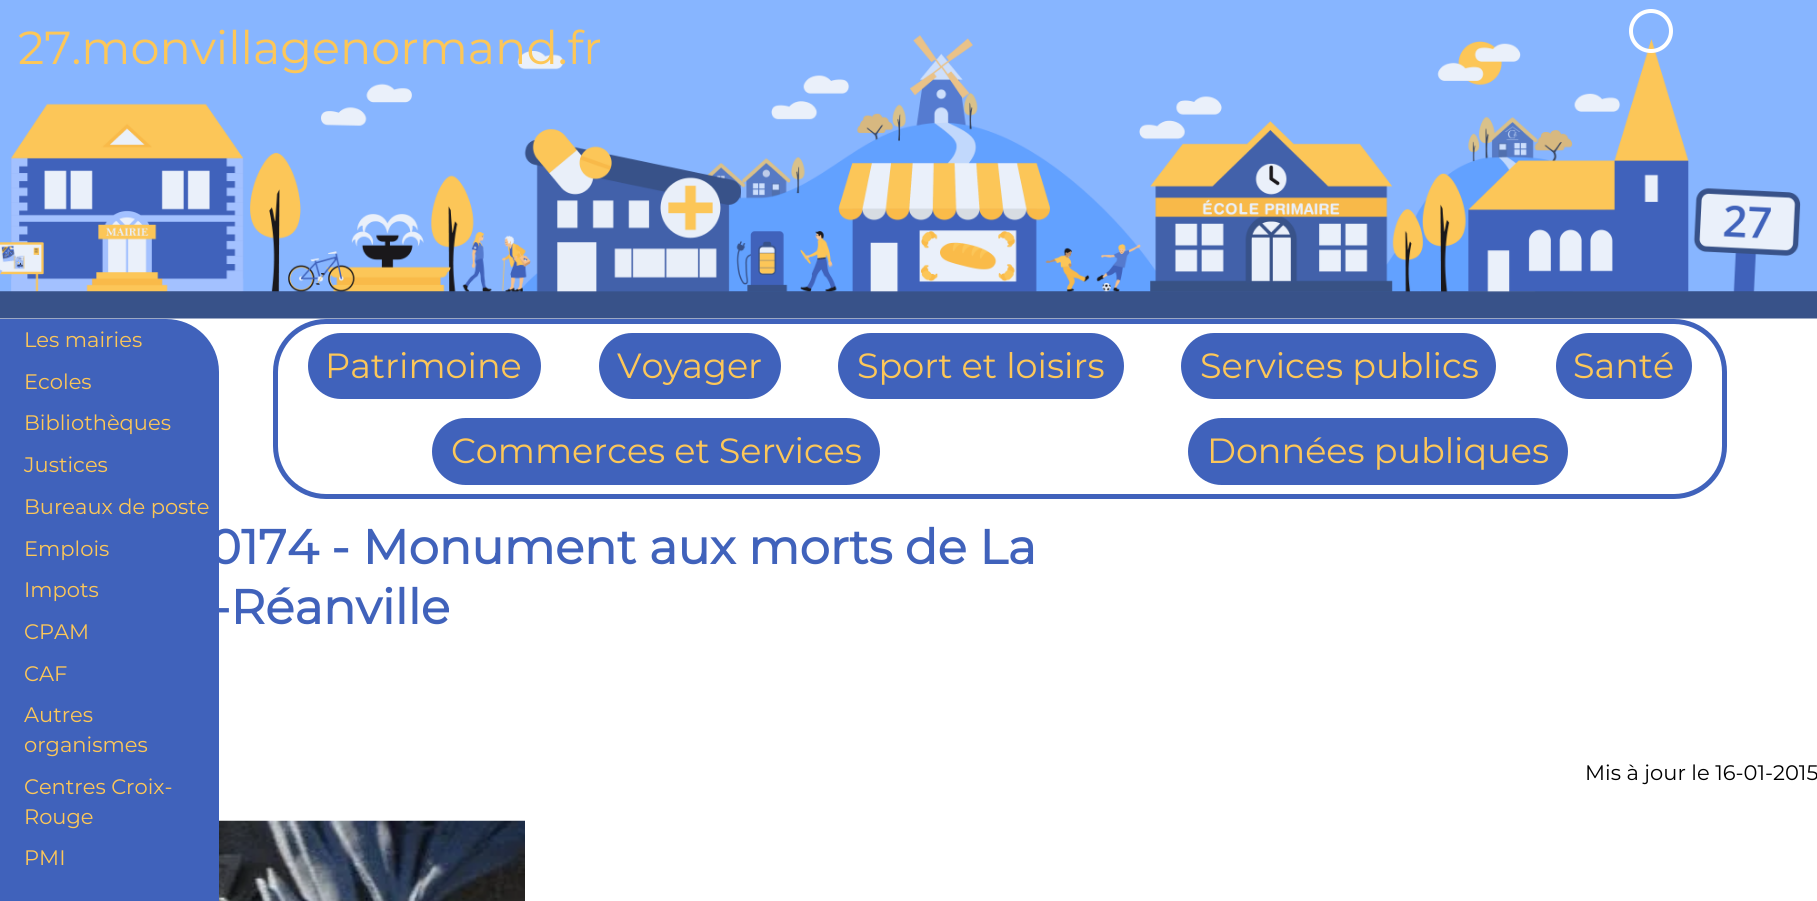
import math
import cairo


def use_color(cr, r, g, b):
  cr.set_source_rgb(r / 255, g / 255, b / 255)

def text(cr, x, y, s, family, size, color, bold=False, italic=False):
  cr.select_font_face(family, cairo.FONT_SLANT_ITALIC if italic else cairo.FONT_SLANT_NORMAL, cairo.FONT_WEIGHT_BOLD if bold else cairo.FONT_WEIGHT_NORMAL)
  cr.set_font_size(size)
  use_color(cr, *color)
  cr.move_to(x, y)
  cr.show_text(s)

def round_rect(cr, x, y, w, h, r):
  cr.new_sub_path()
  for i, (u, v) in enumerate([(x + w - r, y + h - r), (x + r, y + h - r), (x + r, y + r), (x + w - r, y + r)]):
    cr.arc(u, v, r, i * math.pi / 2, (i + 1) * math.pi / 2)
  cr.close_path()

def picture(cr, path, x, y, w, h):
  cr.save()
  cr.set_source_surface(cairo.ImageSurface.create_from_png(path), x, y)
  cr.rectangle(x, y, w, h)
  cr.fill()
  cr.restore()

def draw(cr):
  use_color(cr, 255, 255, 255)
  cr.paint()
  picture(cr, "img_01.png", 0, 0, 1817, 319)
  cr.arc(1651, 31, 20, 0, 2 * math.pi)
  use_color(cr, 255, 255, 255)
  cr.set_line_width(4)
  cr.stroke()
  use_color(cr, 64, 98, 187)
  cr.new_path()
  cr.move_to(0, 319)
  cr.line_to(166, 319)
  cr.curve_to(195.5, 319, 219, 342.5, 219, 372)
  cr.line_to(219, 901)
  cr.curve_to(219, 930.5, 195.5, 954, 166, 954)
  cr.line_to(0, 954)
  cr.close_path()
  cr.fill()
  round_rect(cr, 275.5, 321.5, 1449, 175, 50.5)
  cr.set_line_width(5)
  cr.stroke()
  round_rect(cr, 308, 333, 233, 66, 33)
  cr.fill()
  round_rect(cr, 599, 333, 182, 66, 33)
  cr.fill()
  round_rect(cr, 838, 333, 286, 66, 33)
  cr.fill()
  round_rect(cr, 1181, 333, 315, 66, 33)
  cr.fill()
  round_rect(cr, 1556, 333, 136, 66, 33)
  cr.fill()
  round_rect(cr, 432, 418, 448, 67, 33.5)
  cr.fill()
  round_rect(cr, 1188, 418, 380, 67, 33.5)
  cr.fill()
  picture(cr, "img_02.png", 219, 820, 306, 81)
  text(cr, 18, 64, "27.monvillagenormand.fr", "Montserrat Thin", 46.25, (253, 199, 88))
  text(cr, 24, 347, "Les mairies", "Montserrat Thin", 21, (253, 199, 88))
  text(cr, 24, 389, "Ecoles", "Montserrat Thin", 21, (253, 199, 88))
  text(cr, 24, 430, "Bibliothèques", "Montserrat Thin", 21, (253, 199, 88))
  text(cr, 24, 472, "Justices", "Montserrat Thin", 21, (253, 199, 88))
  text(cr, 24, 514, "Bureaux de poste", "Montserrat Thin", 21, (253, 199, 88))
  text(cr, 24, 556, "Emplois", "Montserrat Thin", 21, (253, 199, 88))
  text(cr, 24, 597, "Impots", "Montserrat Thin", 21, (253, 199, 88))
  text(cr, 24, 639, "CPAM", "Montserrat Thin", 21, (253, 199, 88))
  text(cr, 24, 681, "CAF", "Montserrat Thin", 21, (253, 199, 88))
  text(cr, 24, 722, "Autres", "Montserrat Thin", 21, (253, 199, 88))
  text(cr, 24, 752, "organismes", "Montserrat Thin", 21, (253, 199, 88))
  text(cr, 24, 794, "Centres Croix-", "Montserrat Thin", 21, (253, 199, 88))
  text(cr, 24, 824, "Rouge", "Montserrat Thin", 21, (253, 199, 88))
  text(cr, 24, 865, "PMI", "Montserrat Thin", 21, (253, 199, 88))
  text(cr, 325, 378, "Patrimoine", "Montserrat Thin", 35, (253, 199, 88))
  text(cr, 617, 378, "Voyager", "Montserrat Thin", 35, (253, 199, 88))
  text(cr, 857, 378, "Sport et loisirs", "Montserrat Thin", 35, (253, 199, 88))
  text(cr, 1200, 378, "Services publics", "Montserrat Thin", 35, (253, 199, 88))
  text(cr, 1573, 378, "Santé", "Montserrat Thin", 35, (253, 199, 88))
  text(cr, 451, 463, "Commerces et Services", "Montserrat Thin", 35, (253, 199, 88))
  text(cr, 1207, 463, "Données publiques", "Montserrat Thin", 35, (253, 199, 88))
  text(cr, 209, 564, "0174 - Monument aux morts de La", "Montserrat", 48.25, (64, 98, 187), bold=True)
  text(cr, 212, 624, "-Réanville", "Montserrat", 48.25, (64, 98, 187), bold=True)
  text(cr, 1585, 780, "Mis à jour le 16-01-2015", "Montserrat Thin", 21, (0, 0, 0))


surface = cairo.ImageSurface(cairo.FORMAT_RGB24, 1817, 901)
cr = cairo.Context(surface)
options = cairo.FontOptions()
options.set_hint_metrics(cairo.HINT_METRICS_OFF)
options.set_hint_style(cairo.HINT_STYLE_NONE)
cr.set_font_options(options)
cr.set_miter_limit(4)
draw(cr)
surface.write_to_png("out.png")
